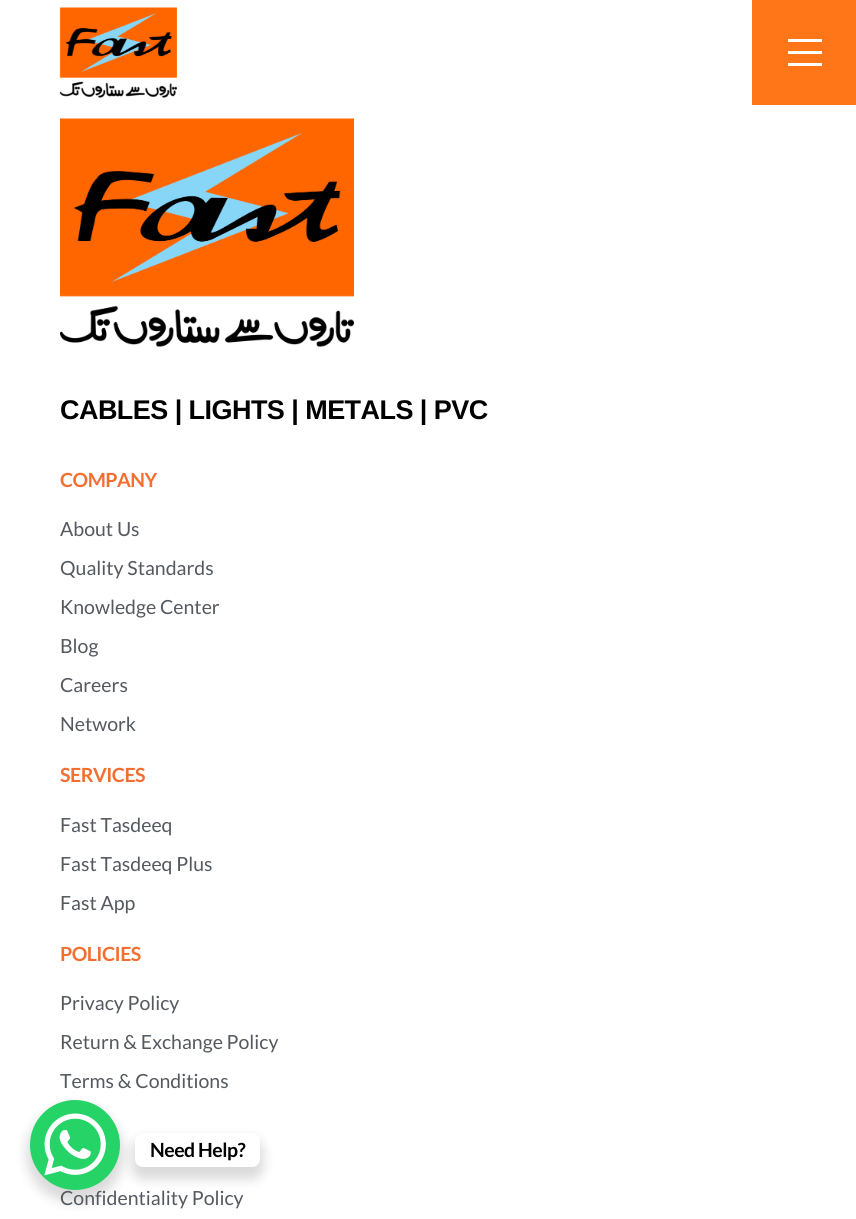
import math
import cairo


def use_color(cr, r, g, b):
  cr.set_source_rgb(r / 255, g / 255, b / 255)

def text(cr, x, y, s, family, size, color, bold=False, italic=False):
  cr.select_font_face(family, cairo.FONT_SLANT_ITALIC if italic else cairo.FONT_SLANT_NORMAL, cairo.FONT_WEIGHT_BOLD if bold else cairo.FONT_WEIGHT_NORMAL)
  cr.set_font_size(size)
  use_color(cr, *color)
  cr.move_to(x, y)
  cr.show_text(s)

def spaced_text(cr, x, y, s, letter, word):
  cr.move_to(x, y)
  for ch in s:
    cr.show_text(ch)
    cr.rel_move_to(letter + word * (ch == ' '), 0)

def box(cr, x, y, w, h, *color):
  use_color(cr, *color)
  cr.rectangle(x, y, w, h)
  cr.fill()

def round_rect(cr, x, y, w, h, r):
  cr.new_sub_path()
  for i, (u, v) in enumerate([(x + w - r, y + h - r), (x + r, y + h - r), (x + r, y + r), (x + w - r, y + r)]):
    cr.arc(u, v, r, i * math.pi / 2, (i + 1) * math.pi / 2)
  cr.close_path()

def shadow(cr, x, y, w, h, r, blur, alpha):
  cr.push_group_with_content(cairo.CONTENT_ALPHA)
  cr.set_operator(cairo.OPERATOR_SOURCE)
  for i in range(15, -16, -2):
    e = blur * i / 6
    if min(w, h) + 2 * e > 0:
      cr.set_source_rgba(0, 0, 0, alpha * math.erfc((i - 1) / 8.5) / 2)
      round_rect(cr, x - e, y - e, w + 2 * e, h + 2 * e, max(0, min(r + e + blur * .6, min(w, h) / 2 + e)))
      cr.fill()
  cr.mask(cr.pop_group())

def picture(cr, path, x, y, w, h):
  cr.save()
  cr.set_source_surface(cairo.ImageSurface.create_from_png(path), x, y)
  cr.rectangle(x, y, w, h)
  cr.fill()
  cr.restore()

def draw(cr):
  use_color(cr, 255, 255, 255)
  cr.paint()
  picture(cr, "img_01.png", 59, 7, 118, 91)
  box(cr, 752, 0, 104, 105, 255, 118, 24)
  box(cr, 788, 39, 34, 3, 255, 255, 255)
  box(cr, 788, 51, 34, 3, 255, 255, 255)
  box(cr, 788, 63, 34, 3, 255, 255, 255)
  picture(cr, "img_02.png", 60, 118, 294, 229)
  use_color(cr, 0, 0, 0)
  shadow(cr, 27, 1106, 96, 96, 48, 6, 0.15)
  use_color(cr, 37, 211, 102)
  cr.arc(75, 1145, 45, 0, 2 * math.pi)
  cr.fill()
  picture(cr, "img_03.png", 44, 1113, 62, 63)
  use_color(cr, 0, 0, 0)
  shadow(cr, 132, 1139, 131, 40, 11, 6, 0.15)
  use_color(cr, 255, 255, 255)
  round_rect(cr, 135, 1133, 125, 34, 8)
  cr.fill()
  cr.select_font_face("Liberation Sans", cairo.FONT_SLANT_NORMAL, cairo.FONT_WEIGHT_BOLD)
  cr.set_font_size(27)
  use_color(cr, 0, 0, 0)
  spaced_text(cr, 60, 419, "CABLES | LIGHTS | METALS | PVC", -0.55, 0)
  cr.select_font_face("Lato", cairo.FONT_SLANT_NORMAL, cairo.FONT_WEIGHT_BOLD)
  cr.set_font_size(19.5)
  use_color(cr, 243, 111, 49)
  spaced_text(cr, 60, 487, "COMPANY", -0.5, 0)
  text(cr, 60, 536, "About Us", "Lato", 19.5, (84, 89, 95))
  text(cr, 60, 575, "Quality Standards", "Lato", 19.5, (84, 89, 95))
  text(cr, 60, 614, "Knowledge Center", "Lato", 19.5, (84, 89, 95))
  text(cr, 60, 653, "Blog", "Lato", 19.5, (84, 89, 95))
  text(cr, 60, 692, "Careers", "Lato", 19.5, (84, 89, 95))
  text(cr, 60, 731, "Network", "Lato", 19.5, (84, 89, 95))
  cr.select_font_face("Lato", cairo.FONT_SLANT_NORMAL, cairo.FONT_WEIGHT_BOLD)
  use_color(cr, 243, 111, 49)
  spaced_text(cr, 60, 782, "SERVICES", -0.5, 0)
  text(cr, 60, 832, "Fast Tasdeeq", "Lato", 19.5, (84, 89, 95))
  text(cr, 60, 871, "Fast Tasdeeq Plus", "Lato", 19.5, (84, 89, 95))
  text(cr, 60, 910, "Fast App", "Lato", 19.5, (84, 89, 95))
  cr.select_font_face("Lato", cairo.FONT_SLANT_NORMAL, cairo.FONT_WEIGHT_BOLD)
  use_color(cr, 243, 111, 49)
  spaced_text(cr, 60, 961, "POLICIES", -0.5, 0)
  text(cr, 60, 1010, "Privacy Policy", "Lato", 19.5, (84, 89, 95))
  text(cr, 60, 1049, "Return & Exchange Policy", "Lato", 19.5, (84, 89, 95))
  text(cr, 60, 1088, "Terms & Conditions", "Lato", 19.5, (84, 89, 95))
  text(cr, 60, 1205, "Confidentiality Policy", "Lato", 19.5, (84, 89, 95))
  cr.select_font_face("Lato", cairo.FONT_SLANT_NORMAL, cairo.FONT_WEIGHT_BOLD)
  use_color(cr, 0, 0, 0)
  spaced_text(cr, 150, 1157, "Need Help?", -0.5, 0)


surface = cairo.ImageSurface(cairo.FORMAT_RGB24, 856, 1219)
cr = cairo.Context(surface)
options = cairo.FontOptions()
options.set_hint_metrics(cairo.HINT_METRICS_OFF)
options.set_hint_style(cairo.HINT_STYLE_NONE)
cr.set_font_options(options)
cr.set_miter_limit(4)
draw(cr)
surface.write_to_png("out.png")
